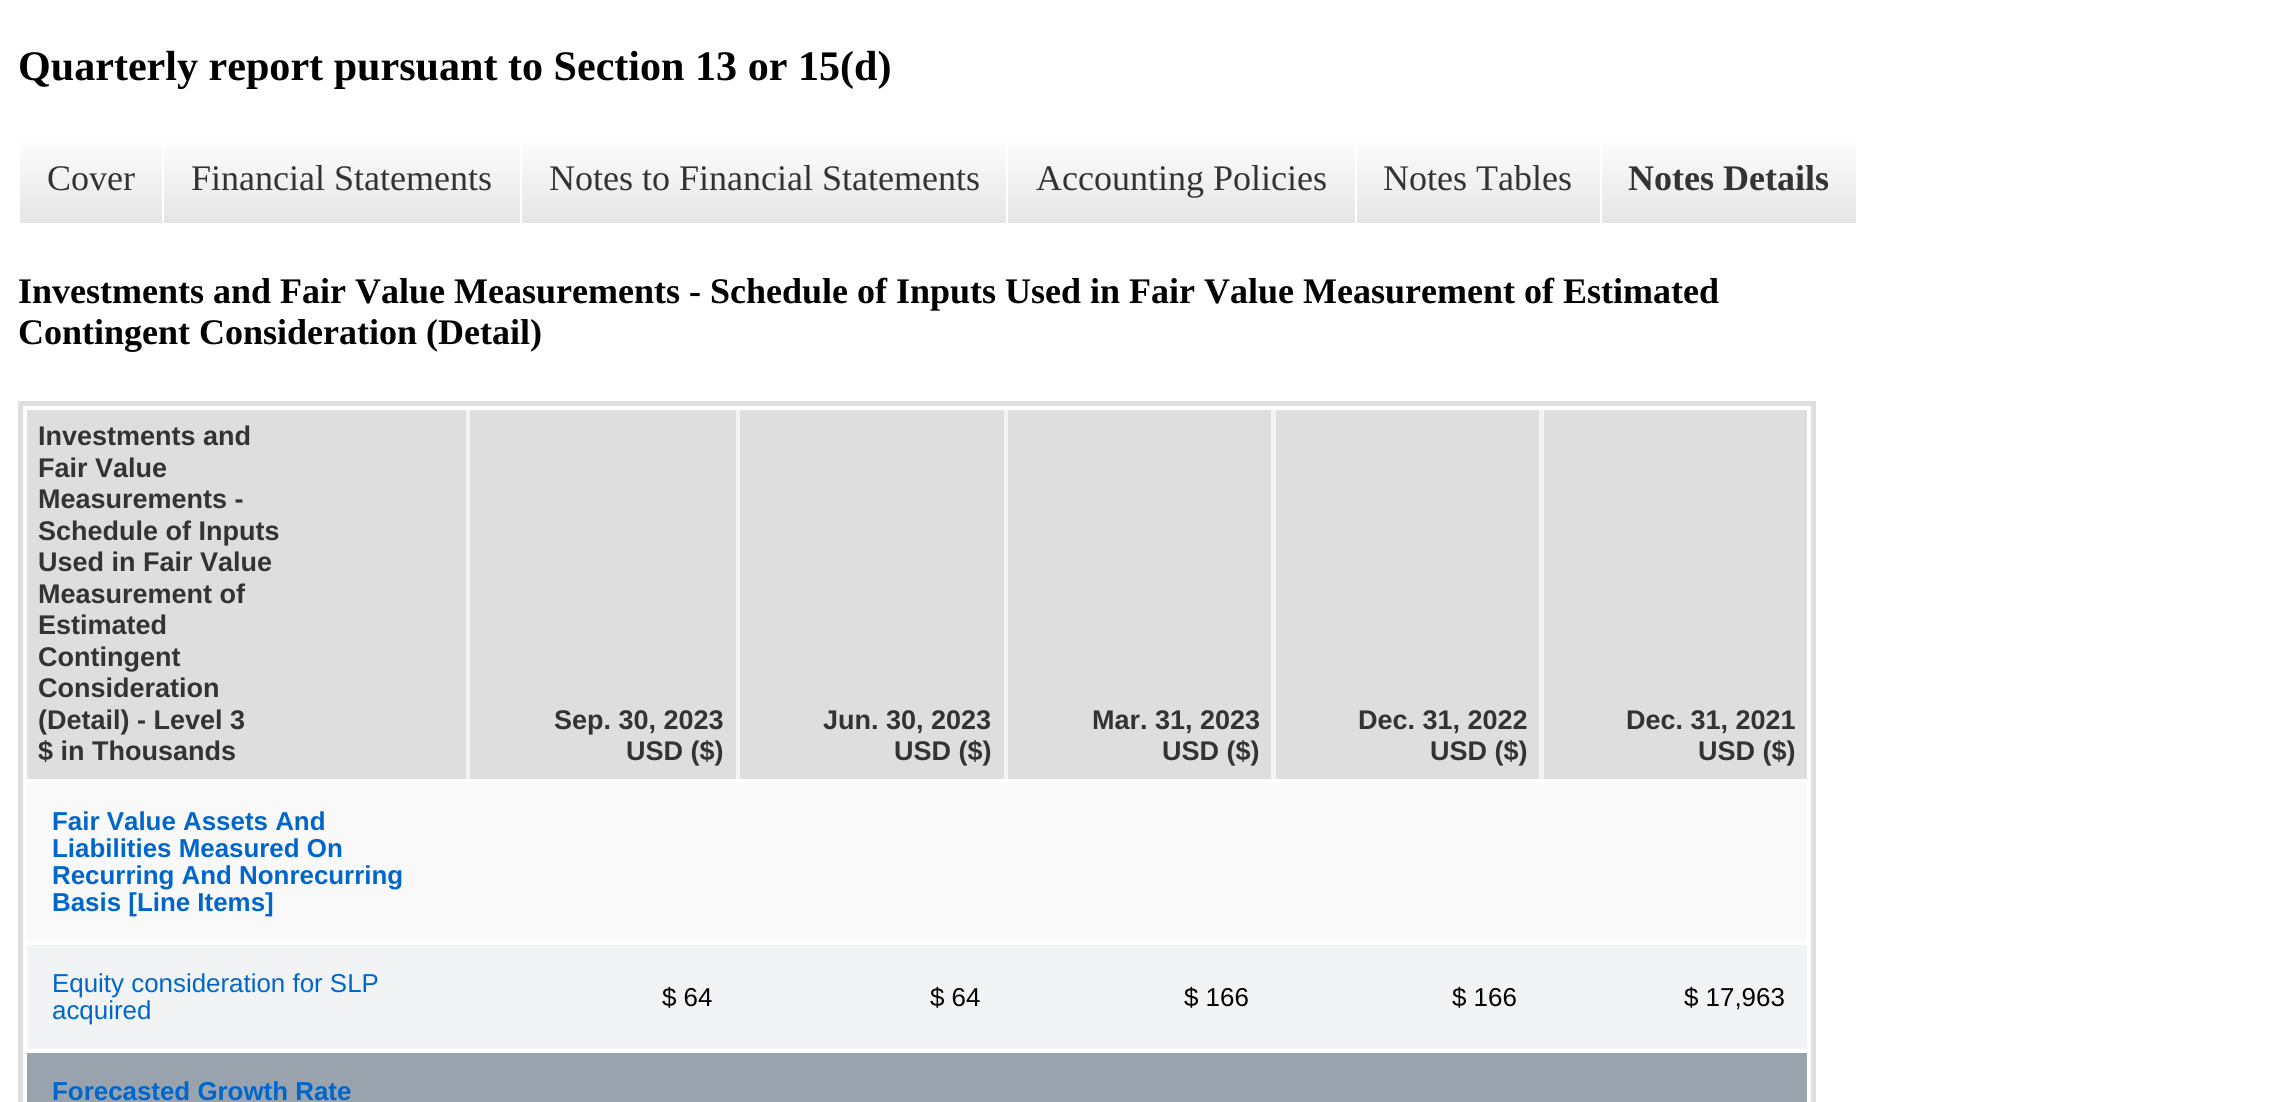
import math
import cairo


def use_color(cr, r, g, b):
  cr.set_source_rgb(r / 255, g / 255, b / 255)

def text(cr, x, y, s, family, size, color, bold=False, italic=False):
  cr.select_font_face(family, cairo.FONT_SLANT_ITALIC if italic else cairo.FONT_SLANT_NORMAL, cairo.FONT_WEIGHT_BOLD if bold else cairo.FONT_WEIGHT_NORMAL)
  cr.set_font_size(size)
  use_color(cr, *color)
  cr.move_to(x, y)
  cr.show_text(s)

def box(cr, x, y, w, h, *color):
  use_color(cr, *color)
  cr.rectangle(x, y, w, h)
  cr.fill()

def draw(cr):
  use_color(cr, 255, 255, 255)
  cr.paint()
  gradient = cairo.LinearGradient(91, 133, 91, 223)
  gradient.add_color_stop_rgba(0, 1, 1, 1, 1)
  gradient.add_color_stop_rgba(1, 0.898, 0.898, 0.898, 1)
  cr.set_source(gradient)
  cr.rectangle(20, 142, 142, 81)
  cr.fill()
  gradient = cairo.LinearGradient(342, 133, 342, 223)
  gradient.add_color_stop_rgba(0, 1, 1, 1, 1)
  gradient.add_color_stop_rgba(1, 0.898, 0.898, 0.898, 1)
  cr.set_source(gradient)
  cr.rectangle(164, 142, 356, 81)
  cr.fill()
  gradient = cairo.LinearGradient(764, 133, 764, 223)
  gradient.add_color_stop_rgba(0, 1, 1, 1, 1)
  gradient.add_color_stop_rgba(1, 0.898, 0.898, 0.898, 1)
  cr.set_source(gradient)
  cr.rectangle(522, 142, 484, 81)
  cr.fill()
  gradient = cairo.LinearGradient(1181, 133, 1181, 223)
  gradient.add_color_stop_rgba(0, 1, 1, 1, 1)
  gradient.add_color_stop_rgba(1, 0.898, 0.898, 0.898, 1)
  cr.set_source(gradient)
  cr.rectangle(1008, 142, 347, 81)
  cr.fill()
  gradient = cairo.LinearGradient(1478, 133, 1478, 223)
  gradient.add_color_stop_rgba(0, 1, 1, 1, 1)
  gradient.add_color_stop_rgba(1, 0.898, 0.898, 0.898, 1)
  cr.set_source(gradient)
  cr.rectangle(1357, 142, 243, 81)
  cr.fill()
  gradient = cairo.LinearGradient(1729, 133, 1729, 223)
  gradient.add_color_stop_rgba(0, 1, 1, 1, 1)
  gradient.add_color_stop_rgba(1, 0.898, 0.898, 0.898, 1)
  cr.set_source(gradient)
  cr.rectangle(1602, 142, 254, 81)
  cr.fill()
  cr.rectangle(20.5, 403.5, 1793, 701)
  use_color(cr, 222, 222, 222)
  cr.set_line_width(5)
  cr.stroke()
  box(cr, 466, 410, 1078, 369, 242, 243, 244)
  box(cr, 27, 410, 439, 369, 222, 222, 222)
  box(cr, 470, 410, 266, 369, 222, 222, 222)
  box(cr, 740, 410, 264, 369, 222, 222, 222)
  box(cr, 1008, 410, 263, 369, 222, 222, 222)
  box(cr, 1276, 410, 263, 369, 222, 222, 222)
  box(cr, 1544, 410, 263, 369, 222, 222, 222)
  box(cr, 27, 783, 1780, 158, 249, 249, 249)
  box(cr, 27, 945, 1780, 104, 242, 243, 244)
  box(cr, 27, 1053, 1780, 49, 152, 163, 173)
  text(cr, 18, 80, "Quarterly report pursuant to Section 13 or 15(d)", "Liberation Serif", 42.1, (0, 0, 0), bold=True)
  text(cr, 47, 190, "Cover", "Liberation Serif", 36, (51, 51, 51))
  text(cr, 191, 190, "Financial Statements", "Liberation Serif", 36, (51, 51, 51))
  text(cr, 549, 190, "Notes to Financial Statements", "Liberation Serif", 36, (51, 51, 51))
  text(cr, 1036, 190, "Accounting Policies", "Liberation Serif", 36, (51, 51, 51))
  text(cr, 1383, 190, "Notes Tables", "Liberation Serif", 36, (51, 51, 51))
  text(cr, 1628, 190, "Notes Details", "Liberation Serif", 36, (51, 51, 51), bold=True)
  text(cr, 18, 303, "Investments and Fair Value Measurements - Schedule of Inputs Used in Fair Value Measurement of Estimated", "Liberation Serif", 36, (0, 0, 0), bold=True)
  text(cr, 18, 344, "Contingent Consideration (Detail)", "Liberation Serif", 36, (0, 0, 0), bold=True)
  text(cr, 38, 445, "Investments and", "Liberation Sans", 27, (51, 51, 51), bold=True)
  text(cr, 38, 477, "Fair Value", "Liberation Sans", 27, (51, 51, 51), bold=True)
  text(cr, 38, 508, "Measurements -", "Liberation Sans", 27, (51, 51, 51), bold=True)
  text(cr, 38, 540, "Schedule of Inputs", "Liberation Sans", 27, (51, 51, 51), bold=True)
  text(cr, 38, 571, "Used in Fair Value", "Liberation Sans", 27, (51, 51, 51), bold=True)
  text(cr, 38, 603, "Measurement of", "Liberation Sans", 27, (51, 51, 51), bold=True)
  text(cr, 38, 634, "Estimated", "Liberation Sans", 27, (51, 51, 51), bold=True)
  text(cr, 38, 666, "Contingent", "Liberation Sans", 27, (51, 51, 51), bold=True)
  text(cr, 38, 697, "Consideration", "Liberation Sans", 27, (51, 51, 51), bold=True)
  text(cr, 38, 729, "(Detail) - Level 3", "Liberation Sans", 27, (51, 51, 51), bold=True)
  text(cr, 38, 760, "$ in Thousands", "Liberation Sans", 27, (51, 51, 51), bold=True)
  text(cr, 554, 729, "Sep. 30, 2023", "Liberation Sans", 27, (51, 51, 51), bold=True)
  text(cr, 626, 760, "USD ($)", "Liberation Sans", 27, (51, 51, 51), bold=True)
  text(cr, 823, 729, "Jun. 30, 2023", "Liberation Sans", 27, (51, 51, 51), bold=True)
  text(cr, 894, 760, "USD ($)", "Liberation Sans", 27, (51, 51, 51), bold=True)
  text(cr, 1092, 729, "Mar. 31, 2023", "Liberation Sans", 27, (51, 51, 51), bold=True)
  text(cr, 1162, 760, "USD ($)", "Liberation Sans", 27, (51, 51, 51), bold=True)
  text(cr, 1358, 729, "Dec. 31, 2022", "Liberation Sans", 27, (51, 51, 51), bold=True)
  text(cr, 1430, 760, "USD ($)", "Liberation Sans", 27, (51, 51, 51), bold=True)
  text(cr, 1626, 729, "Dec. 31, 2021", "Liberation Sans", 27, (51, 51, 51), bold=True)
  text(cr, 1698, 760, "USD ($)", "Liberation Sans", 27, (51, 51, 51), bold=True)
  text(cr, 52, 830, "Fair Value Assets And", "Liberation Sans", 25.9, (0, 102, 204), bold=True)
  text(cr, 52, 857, "Liabilities Measured On", "Liberation Sans", 25.9, (0, 102, 204), bold=True)
  text(cr, 52, 884, "Recurring And Nonrecurring", "Liberation Sans", 25.9, (0, 102, 204), bold=True)
  text(cr, 52, 911, "Basis [Line Items]", "Liberation Sans", 25.9, (0, 102, 204), bold=True)
  text(cr, 52, 992, "Equity consideration for SLP", "Liberation Sans", 25.9, (0, 102, 204))
  text(cr, 52, 1019, "acquired", "Liberation Sans", 25.9, (0, 102, 204))
  text(cr, 662, 1006, "$ 64", "Liberation Sans", 25.9, (0, 0, 0))
  text(cr, 930, 1006, "$ 64", "Liberation Sans", 25.9, (0, 0, 0))
  text(cr, 1184, 1006, "$ 166", "Liberation Sans", 25.9, (0, 0, 0))
  text(cr, 1452, 1006, "$ 166", "Liberation Sans", 25.9, (0, 0, 0))
  text(cr, 1684, 1006, "$ 17,963", "Liberation Sans", 25.9, (0, 0, 0))
  text(cr, 52, 1100, "Forecasted Growth Rate", "Liberation Sans", 25.9, (0, 102, 204), bold=True)


surface = cairo.ImageSurface(cairo.FORMAT_RGB24, 2282, 1102)
cr = cairo.Context(surface)
options = cairo.FontOptions()
options.set_hint_metrics(cairo.HINT_METRICS_OFF)
options.set_hint_style(cairo.HINT_STYLE_NONE)
cr.set_font_options(options)
cr.set_miter_limit(4)
draw(cr)
surface.write_to_png("out.png")
